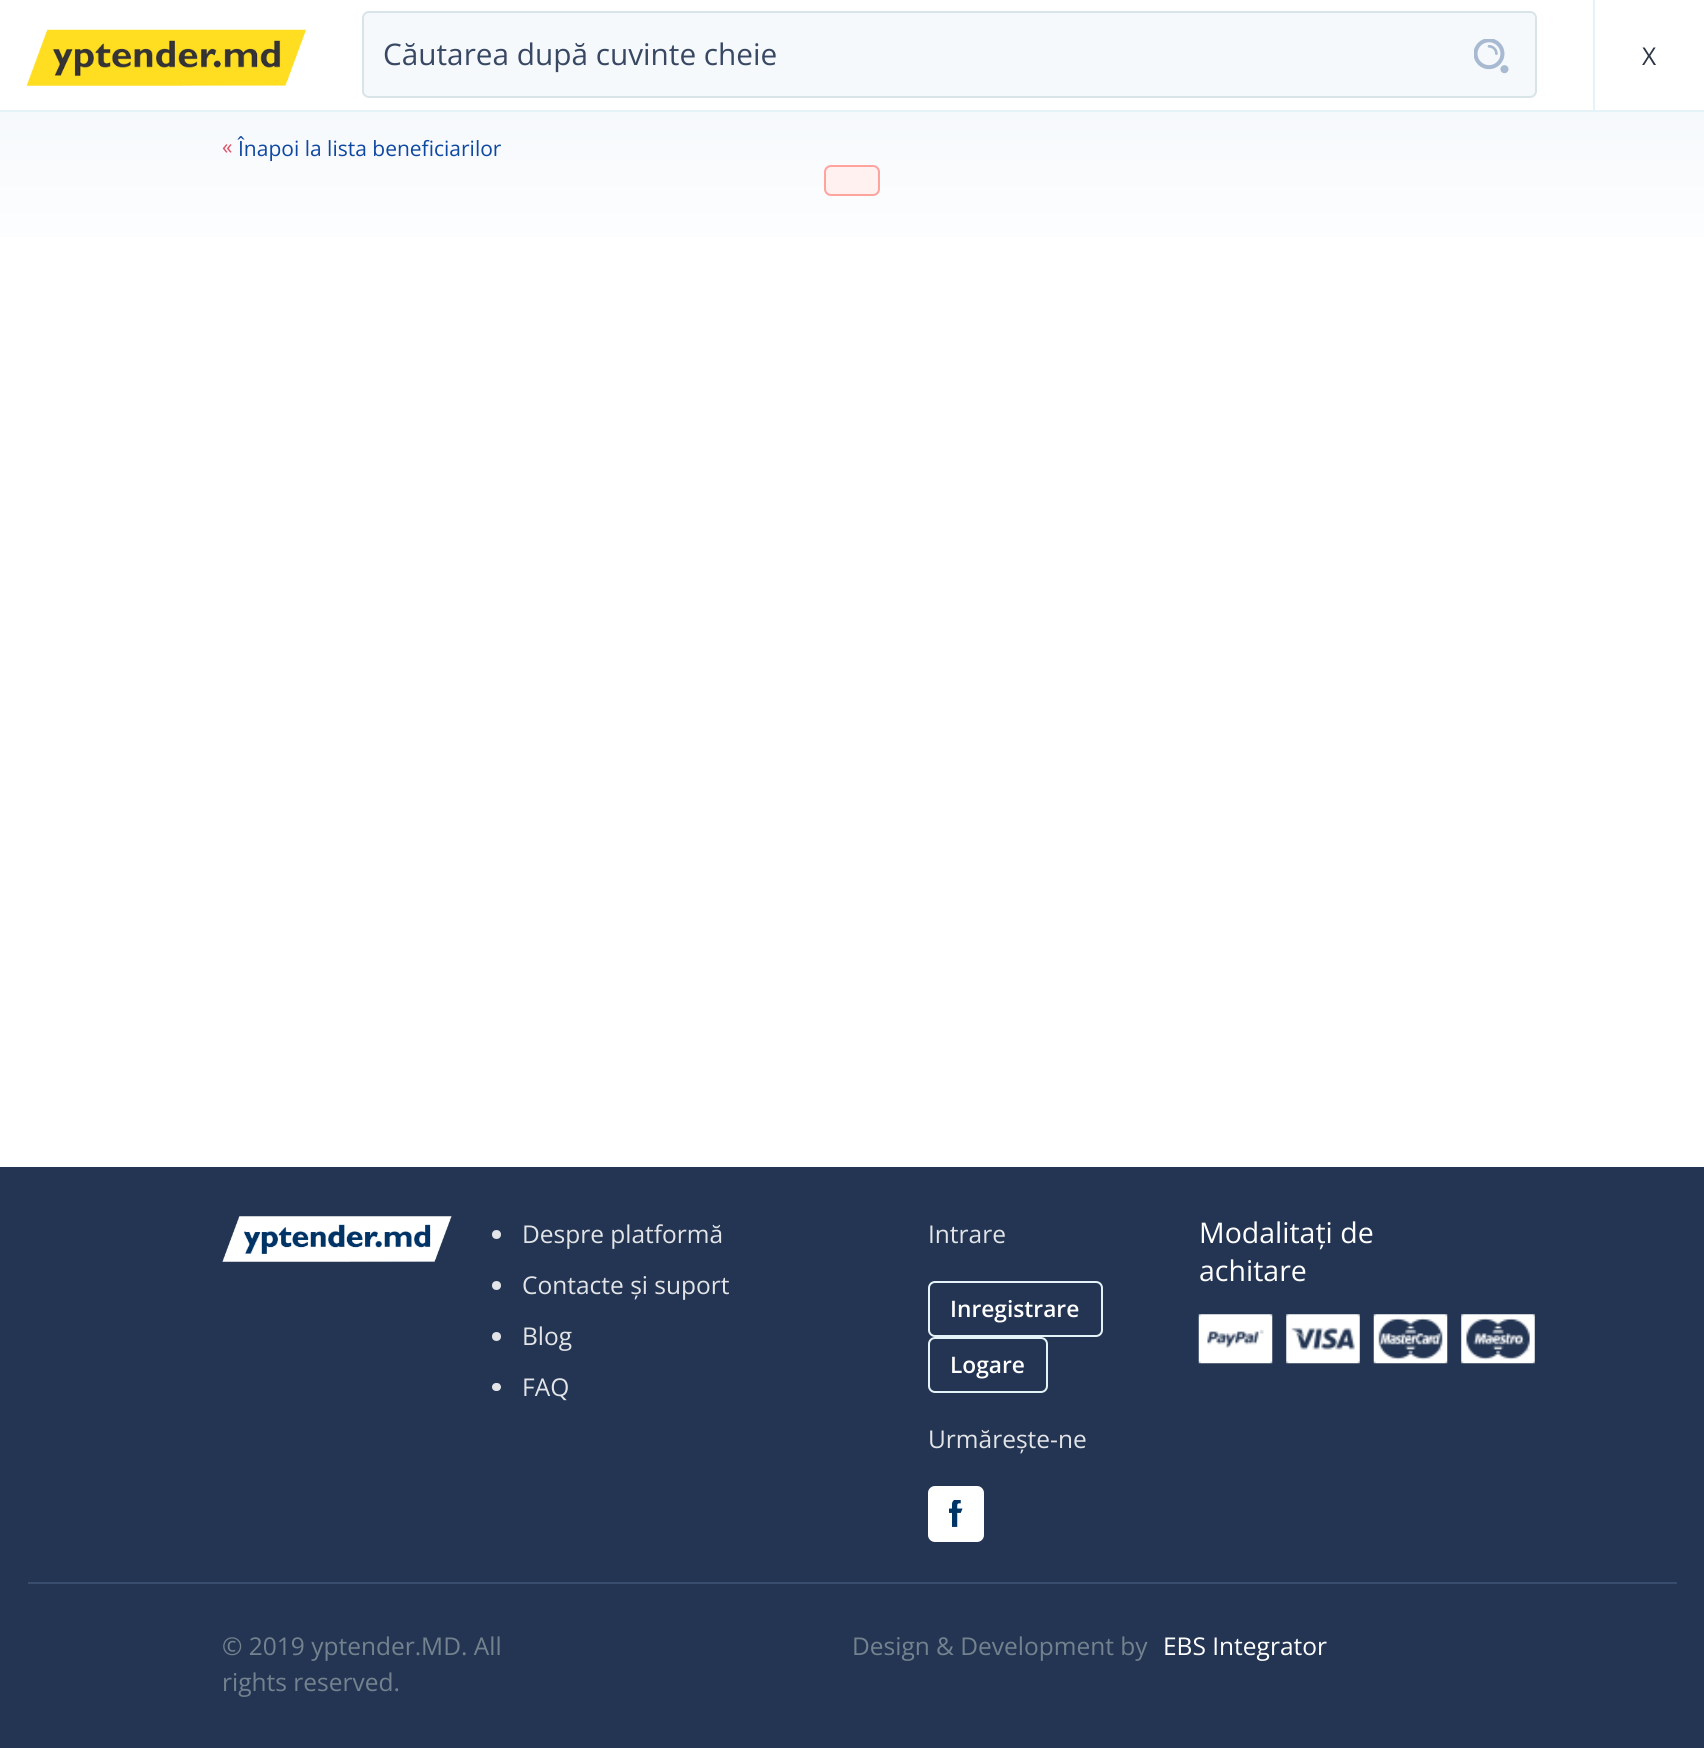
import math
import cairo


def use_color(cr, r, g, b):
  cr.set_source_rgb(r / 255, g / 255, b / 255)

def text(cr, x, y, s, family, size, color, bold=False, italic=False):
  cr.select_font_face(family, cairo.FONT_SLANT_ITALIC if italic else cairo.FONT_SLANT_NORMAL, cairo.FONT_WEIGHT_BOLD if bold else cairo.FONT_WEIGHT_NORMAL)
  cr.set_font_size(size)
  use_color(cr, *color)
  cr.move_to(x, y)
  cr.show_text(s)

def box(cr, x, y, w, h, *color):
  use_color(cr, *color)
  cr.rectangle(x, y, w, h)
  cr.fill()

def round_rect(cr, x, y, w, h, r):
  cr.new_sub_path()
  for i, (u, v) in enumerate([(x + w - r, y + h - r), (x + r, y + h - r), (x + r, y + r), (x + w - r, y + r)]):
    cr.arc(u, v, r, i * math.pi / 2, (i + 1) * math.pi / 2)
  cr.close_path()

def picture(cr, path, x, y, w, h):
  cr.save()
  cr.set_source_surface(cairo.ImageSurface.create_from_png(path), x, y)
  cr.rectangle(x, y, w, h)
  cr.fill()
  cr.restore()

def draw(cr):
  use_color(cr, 255, 255, 255)
  cr.paint()
  picture(cr, "img_01.png", 26, 29, 281, 57)
  use_color(cr, 246, 249, 252)
  round_rect(cr, 363, 12, 1173, 85, 6)
  cr.fill_preserve()
  use_color(cr, 217, 228, 232)
  cr.stroke()
  picture(cr, "img_02.png", 1474, 39, 35, 35)
  box(cr, 1593, 0, 2, 112, 229, 242, 248)
  gradient = cairo.LinearGradient(852, 285, 852, 112)
  gradient.add_color_stop_rgba(0, 1, 1, 1, 1)
  gradient.add_color_stop_rgba(1, 0.965, 0.976, 0.988, 1)
  cr.set_source(gradient)
  cr.rectangle(0, 112, 1704, 125)
  cr.fill()
  box(cr, 0, 110, 1704, 2, 229, 242, 248)
  use_color(cr, 255, 241, 240)
  round_rect(cr, 825, 166, 54, 29, 6)
  cr.fill_preserve()
  use_color(cr, 255, 163, 158)
  cr.stroke()
  box(cr, 0, 1167, 1704, 581, 35, 53, 82)
  picture(cr, "img_03.png", 222, 1216, 230, 46)
  use_color(cr, 226, 228, 232)
  cr.arc(496.5, 1234.5, 4.5, 0, 2 * math.pi)
  cr.fill()
  cr.arc(496.5, 1285.5, 4.5, 0, 2 * math.pi)
  cr.fill()
  cr.arc(496.5, 1336.5, 4.5, 0, 2 * math.pi)
  cr.fill()
  round_rect(cr, 492, 1383, 9, 8, 4)
  cr.fill()
  round_rect(cr, 929, 1282, 173, 54, 6)
  use_color(cr, 229, 242, 248)
  cr.stroke()
  round_rect(cr, 929, 1338, 118, 54, 6)
  cr.stroke()
  use_color(cr, 255, 255, 255)
  round_rect(cr, 928, 1486, 56, 56, 7)
  cr.fill()
  picture(cr, "img_04.png", 949, 1500, 14, 27)
  picture(cr, "img_05.png", 1198, 1314, 75, 50)
  picture(cr, "img_06.png", 1286, 1314, 74, 50)
  picture(cr, "img_07.png", 1373, 1314, 75, 50)
  picture(cr, "img_08.png", 1461, 1314, 74, 50)
  box(cr, 28, 1582, 1649, 2, 57, 77, 110)
  text(cr, 383, 65, "Căutarea după cuvinte cheie", "Open Sans", 29.75, (56, 72, 99))
  text(cr, 1642, 65, "X", "Open Sans", 24.5, (46, 53, 70))
  text(cr, 222, 154, "«", "Open Sans", 21, (222, 82, 101))
  text(cr, 238, 156, "Înapoi la lista beneficiarilor", "Open Sans", 21, (14, 72, 161))
  text(cr, 522, 1243, "Despre platformă", "Open Sans", 24.5, (226, 228, 232))
  text(cr, 522, 1294, "Contacte și suport", "Open Sans", 24.5, (226, 228, 232))
  text(cr, 522, 1345, "Blog", "Open Sans", 24.5, (226, 228, 232))
  text(cr, 522, 1396, "FAQ", "Open Sans", 24.5, (226, 228, 232))
  text(cr, 928, 1243, "Intrare", "Open Sans", 24.5, (226, 228, 232))
  text(cr, 950, 1317, "Inregistrare", "Open Sans SemiBold", 22.75, (255, 255, 255))
  text(cr, 950, 1373, "Logare", "Open Sans SemiBold", 22.75, (255, 255, 255))
  text(cr, 928, 1448, "Urmărește-ne", "Open Sans", 24.5, (226, 228, 232))
  text(cr, 1199, 1243, "Modalitați de", "Open Sans", 28.5, (255, 255, 255))
  text(cr, 1199, 1281, "achitare", "Open Sans", 28.5, (255, 255, 255))
  text(cr, 222, 1655, "© 2019 yptender.MD. All", "Open Sans", 24.5, (115, 130, 142))
  text(cr, 222, 1691, "rights reserved.", "Open Sans", 24.5, (115, 130, 142))
  text(cr, 852, 1655, "Design & Development by", "Open Sans", 24.5, (115, 130, 142))
  text(cr, 1163, 1655, "EBS Integrator", "Open Sans", 24.5, (255, 255, 255))


surface = cairo.ImageSurface(cairo.FORMAT_RGB24, 1704, 1748)
cr = cairo.Context(surface)
options = cairo.FontOptions()
options.set_hint_metrics(cairo.HINT_METRICS_OFF)
options.set_hint_style(cairo.HINT_STYLE_NONE)
cr.set_font_options(options)
cr.set_miter_limit(4)
draw(cr)
surface.write_to_png("out.png")
